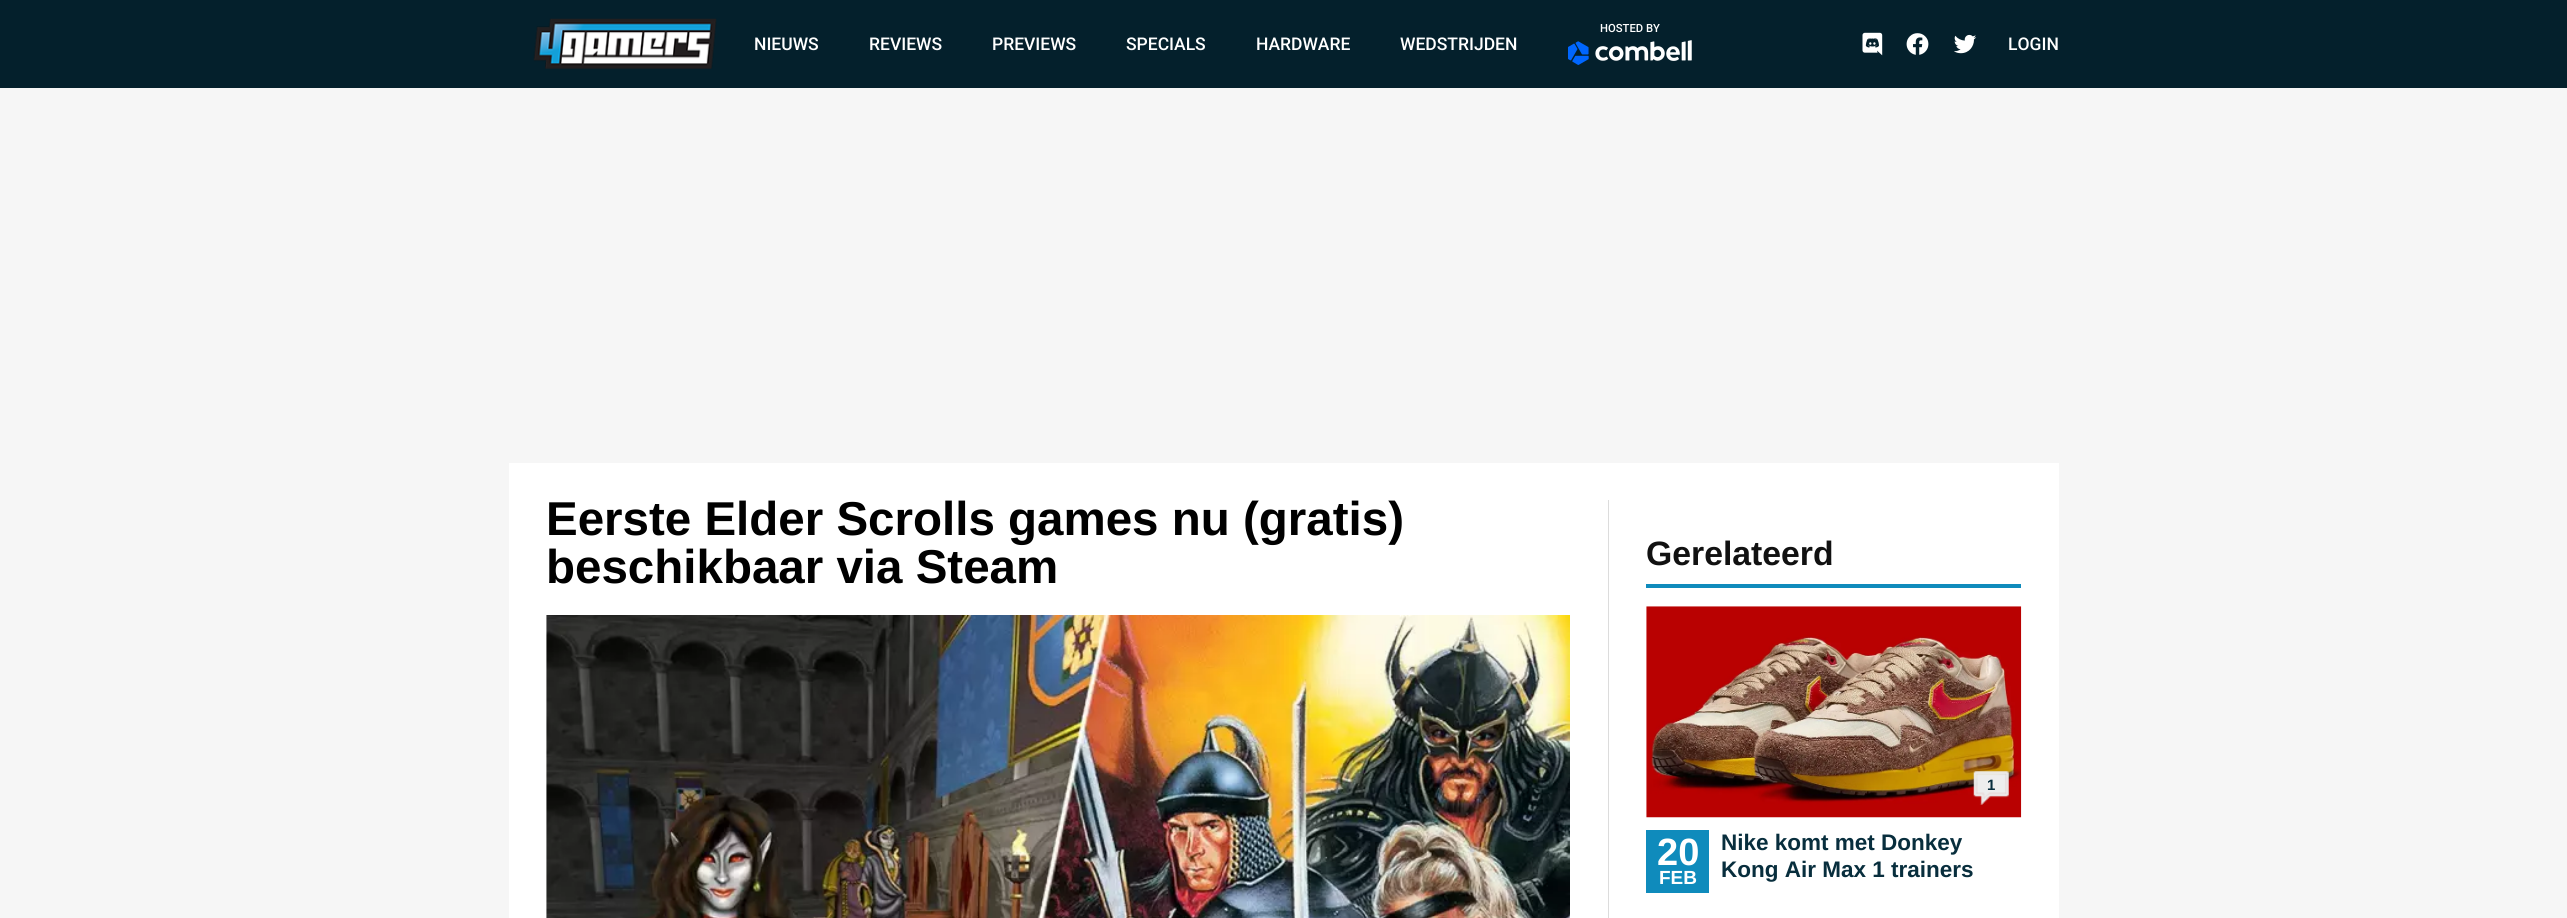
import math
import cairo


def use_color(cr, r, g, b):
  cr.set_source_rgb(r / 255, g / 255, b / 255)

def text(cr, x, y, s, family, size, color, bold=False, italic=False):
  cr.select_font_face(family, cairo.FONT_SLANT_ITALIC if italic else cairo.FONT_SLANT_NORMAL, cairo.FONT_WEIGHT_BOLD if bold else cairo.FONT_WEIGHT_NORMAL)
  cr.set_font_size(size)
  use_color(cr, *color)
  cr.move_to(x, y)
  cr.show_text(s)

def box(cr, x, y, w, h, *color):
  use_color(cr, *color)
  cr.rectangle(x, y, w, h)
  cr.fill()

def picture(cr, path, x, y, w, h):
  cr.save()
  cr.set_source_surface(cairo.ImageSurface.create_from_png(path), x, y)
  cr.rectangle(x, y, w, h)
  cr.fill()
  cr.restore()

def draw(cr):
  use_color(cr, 246, 246, 246)
  cr.paint()
  box(cr, 0, 0, 2567, 88, 4, 32, 44)
  picture(cr, "img_01.png", 533, 18, 184, 51)
  picture(cr, "img_02.png", 1568, 40, 124, 25)
  picture(cr, "img_03.png", 1862, 32, 21, 24)
  picture(cr, "img_04.png", 1906, 33, 23, 22)
  picture(cr, "img_05.png", 1954, 34, 23, 20)
  box(cr, 509, 463, 1550, 455, 255, 255, 255)
  picture(cr, "img_06.png", 546, 615, 1024, 303)
  box(cr, 1608, 500, 1, 418, 220, 220, 220)
  box(cr, 1646, 584, 375, 4, 15, 139, 188)
  picture(cr, "img_07.png", 1646, 606, 376, 212)
  picture(cr, "img_08.png", 1973, 771, 36, 34)
  box(cr, 1646, 830, 63, 63, 15, 139, 188)
  text(cr, 1600, 32, "HOSTED BY", "Roboto Medium", 11.25, (255, 255, 255))
  text(cr, 754, 50, "NIEUWS", "Roboto Medium", 17.5, (255, 255, 255))
  text(cr, 869, 50, "REVIEWS", "Roboto Medium", 17.5, (255, 255, 255))
  text(cr, 992, 50, "PREVIEWS", "Roboto Medium", 17.5, (255, 255, 255))
  text(cr, 1126, 50, "SPECIALS", "Roboto Medium", 17.5, (255, 255, 255))
  text(cr, 1256, 50, "HARDWARE", "Roboto Medium", 17.5, (255, 255, 255))
  text(cr, 1400, 50, "WEDSTRIJDEN", "Roboto Medium", 17.5, (255, 255, 255))
  text(cr, 2008, 50, "LOGIN", "Roboto Medium", 17.5, (255, 255, 255))
  text(cr, 546, 535, "Eerste Elder Scrolls games nu (gratis)", "Arimo", 47.5, (0, 0, 0), bold=True)
  text(cr, 546, 583, "beschikbaar via Steam", "Arimo", 47.5, (0, 0, 0), bold=True)
  text(cr, 1646, 565, "Gerelateerd", "Arimo", 33.75, (17, 17, 17), bold=True)
  text(cr, 1987, 790, "1", "Arimo", 15, (8, 46, 61), bold=True)
  text(cr, 1657, 865, "20", "Arimo", 38, (255, 255, 255), bold=True)
  text(cr, 1659, 884, "FEB", "Arimo", 19, (255, 255, 255), bold=True)
  text(cr, 1721, 850, "Nike komt met Donkey", "Arimo", 22.5, (8, 46, 61), bold=True)
  text(cr, 1721, 877, "Kong Air Max 1 trainers", "Arimo", 22.5, (8, 46, 61), bold=True)


surface = cairo.ImageSurface(cairo.FORMAT_RGB24, 2567, 918)
cr = cairo.Context(surface)
options = cairo.FontOptions()
options.set_hint_metrics(cairo.HINT_METRICS_OFF)
options.set_hint_style(cairo.HINT_STYLE_NONE)
cr.set_font_options(options)
cr.set_miter_limit(4)
draw(cr)
surface.write_to_png("out.png")
